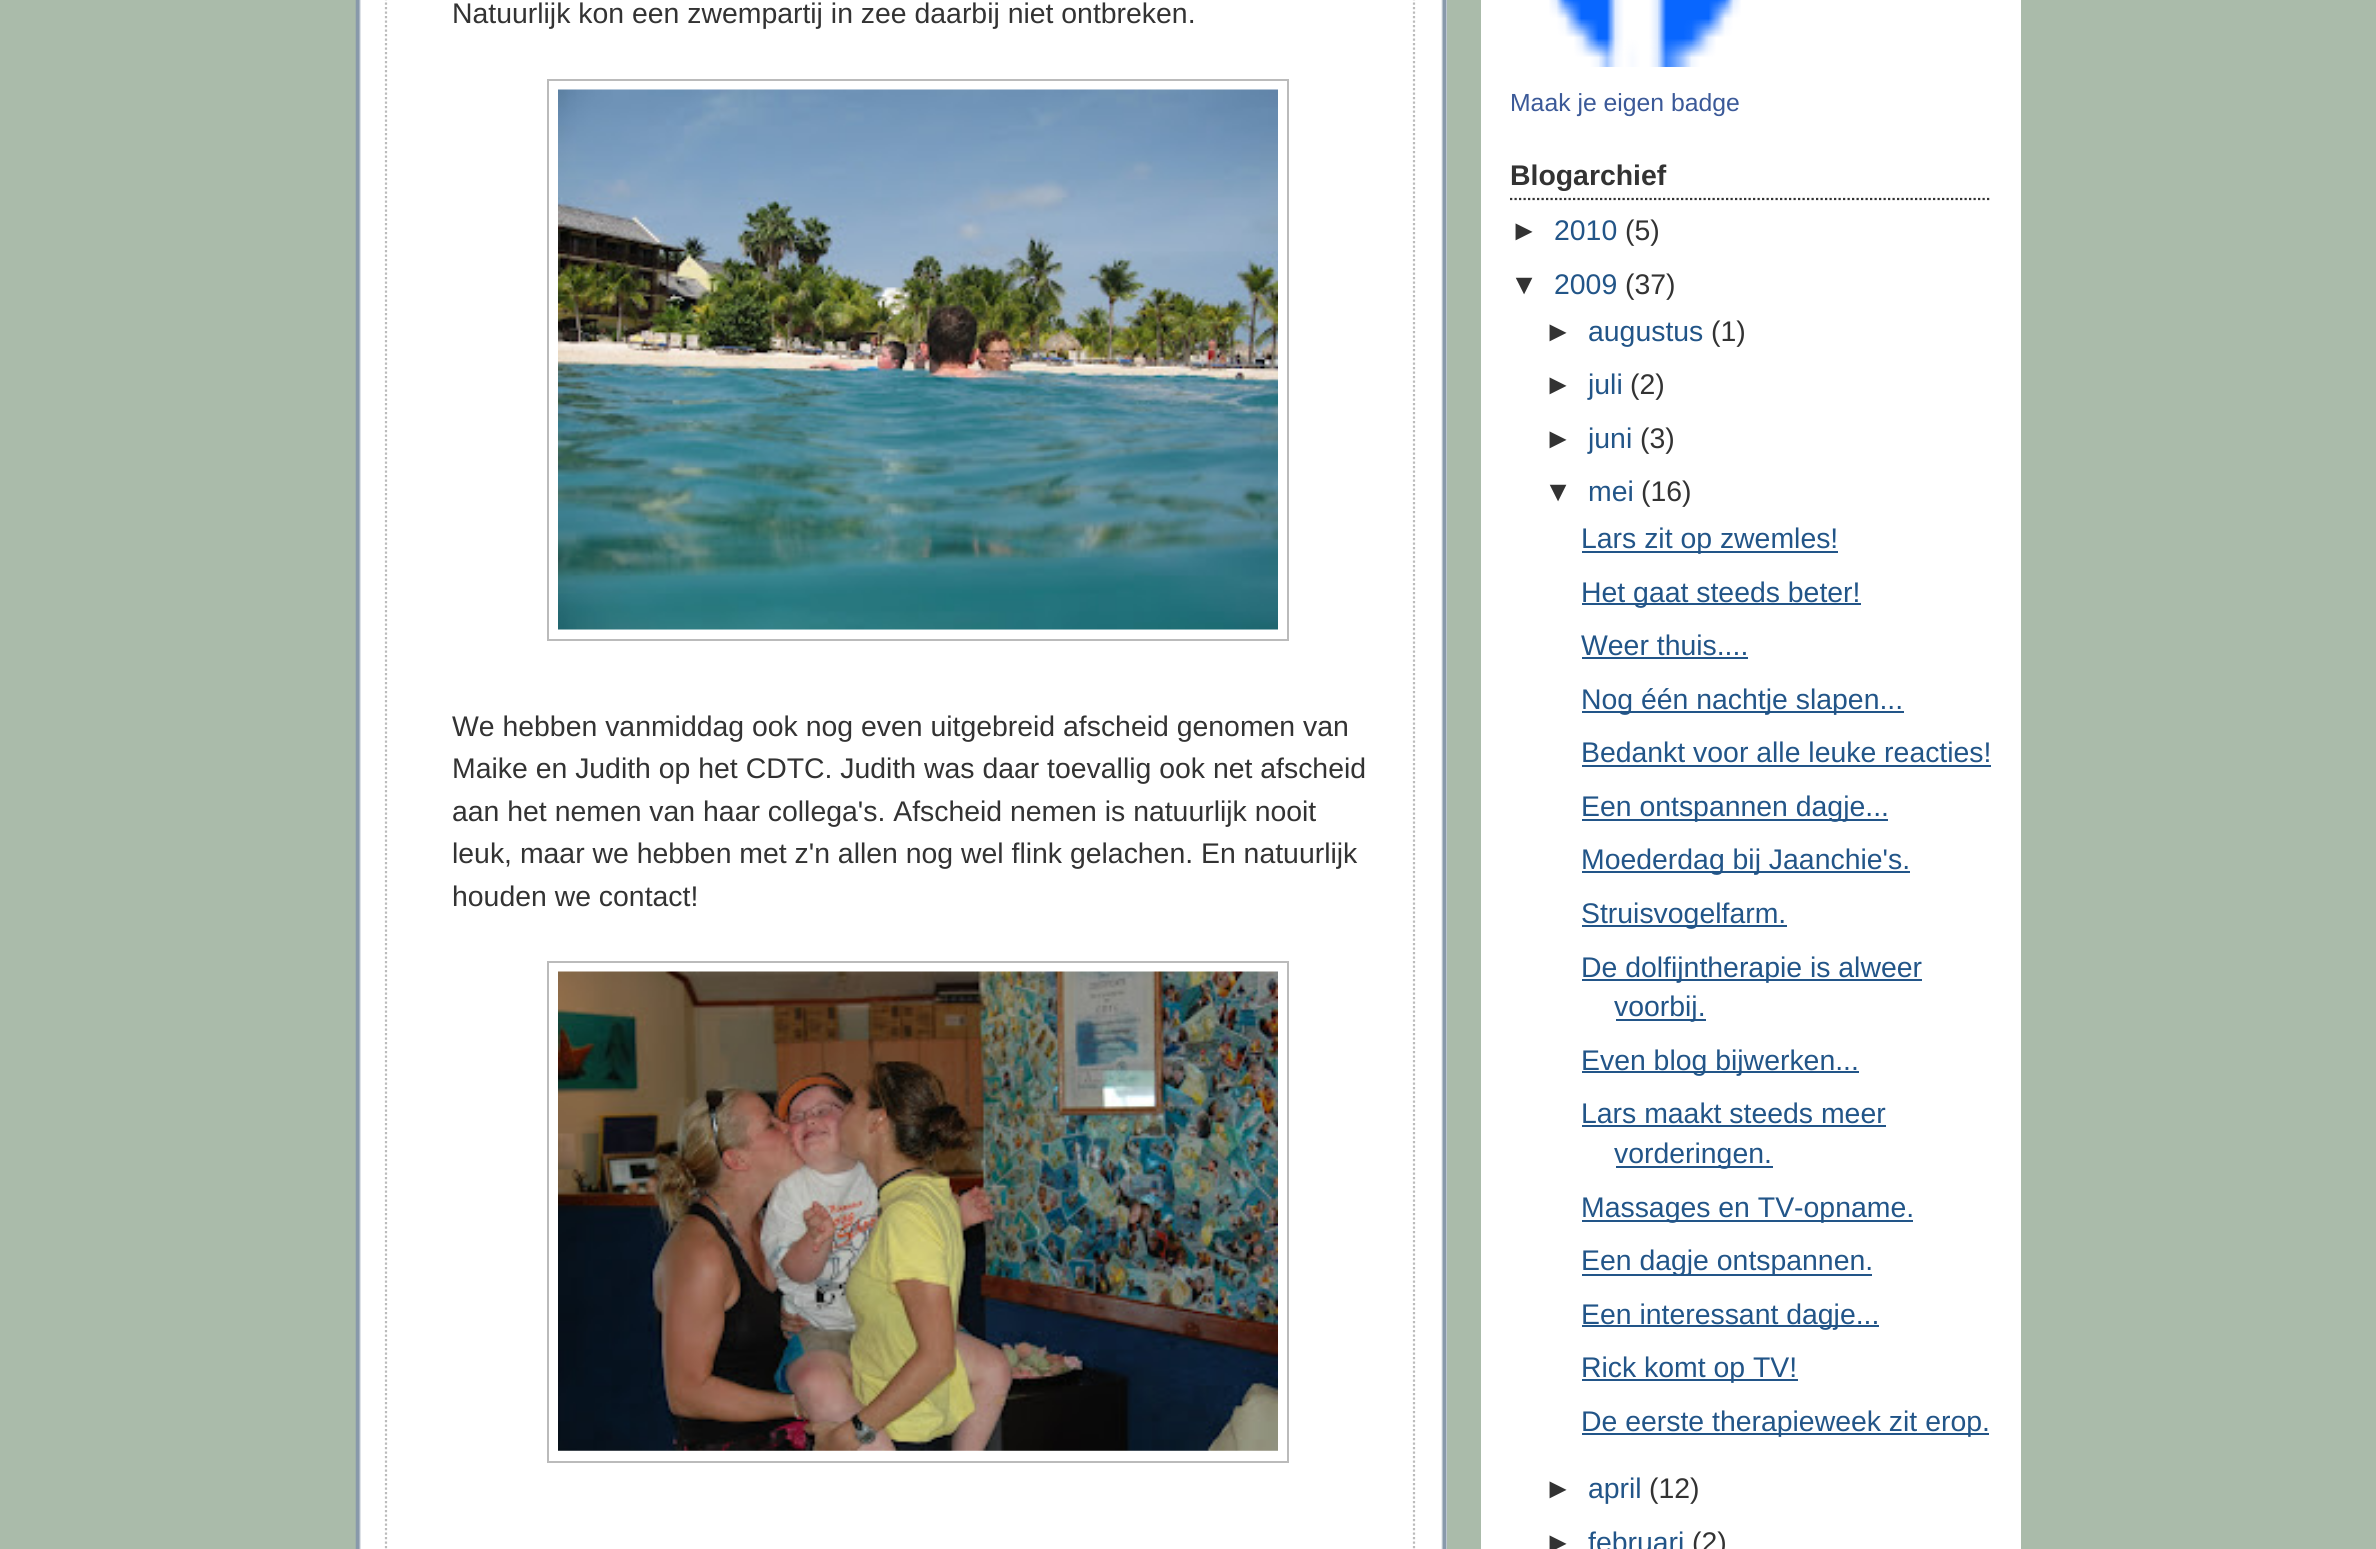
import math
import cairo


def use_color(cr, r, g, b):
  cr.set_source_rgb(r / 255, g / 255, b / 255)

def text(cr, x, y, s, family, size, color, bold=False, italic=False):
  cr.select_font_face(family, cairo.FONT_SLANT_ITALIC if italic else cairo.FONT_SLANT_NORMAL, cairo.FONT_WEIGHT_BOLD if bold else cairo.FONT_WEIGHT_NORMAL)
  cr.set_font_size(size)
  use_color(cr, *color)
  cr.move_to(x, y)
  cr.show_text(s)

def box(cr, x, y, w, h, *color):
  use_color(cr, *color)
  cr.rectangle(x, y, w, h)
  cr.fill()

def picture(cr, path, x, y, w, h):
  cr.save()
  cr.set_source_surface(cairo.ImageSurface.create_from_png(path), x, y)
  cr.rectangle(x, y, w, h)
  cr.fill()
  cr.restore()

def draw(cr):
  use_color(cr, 170, 187, 170)
  cr.paint()
  box(cr, 359, 0, 1088, 1549, 255, 255, 255)
  picture(cr, "img_01.png", 355, 0, 1092, 1549)
  cr.new_path()
  cr.move_to(1414, -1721)
  cr.line_to(1414, 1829)
  use_color(cr, 187, 187, 187)
  cr.set_line_width(2.2)
  cr.set_dash([2.25, 2.25])
  cr.stroke()
  cr.new_path()
  cr.move_to(386, -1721)
  cr.line_to(386, 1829)
  cr.stroke()
  cr.rectangle(548, 80, 740, 560)
  cr.set_line_width(2)
  cr.set_dash([])
  cr.stroke()
  picture(cr, "img_02.png", 558, 89, 720, 541)
  cr.rectangle(548, 962, 740, 500)
  cr.stroke()
  picture(cr, "img_03.png", 558, 971, 720, 480)
  box(cr, 1481, 0, 540, 1549, 255, 255, 255)
  picture(cr, "img_04.png", 1549, 0, 192, 67)
  cr.new_path()
  cr.move_to(1510, 199)
  cr.line_to(1991, 199)
  use_color(cr, 51, 51, 51)
  cr.set_line_width(2.2)
  cr.set_dash([2.25, 2.25])
  cr.stroke()
  box(cr, 1582, 551, 256, 2, 34, 85, 136)
  box(cr, 1582, 603, 279, 2, 34, 85, 136)
  box(cr, 1582, 657, 166, 2, 34, 85, 136)
  box(cr, 1582, 711, 322, 2, 34, 85, 136)
  box(cr, 1582, 765, 409, 2, 34, 85, 136)
  box(cr, 1582, 819, 306, 2, 34, 85, 136)
  box(cr, 1582, 871, 328, 2, 34, 85, 136)
  box(cr, 1582, 925, 205, 2, 34, 85, 136)
  box(cr, 1582, 979, 340, 2, 34, 85, 136)
  box(cr, 1616, 1019, 90, 2, 34, 85, 136)
  box(cr, 1582, 1071, 277, 2, 34, 85, 136)
  box(cr, 1582, 1125, 304, 2, 34, 85, 136)
  box(cr, 1616, 1166, 157, 2, 34, 85, 136)
  box(cr, 1582, 1220, 331, 2, 34, 85, 136)
  box(cr, 1582, 1274, 290, 2, 34, 85, 136)
  box(cr, 1582, 1325, 297, 2, 34, 85, 136)
  box(cr, 1582, 1379, 216, 2, 34, 85, 136)
  box(cr, 1582, 1433, 407, 2, 34, 85, 136)
  text(cr, 452, 23, "Natuurlijk kon een zwempartij in zee daarbij niet ontbreken.", "Liberation Sans", 28.4, (51, 51, 51))
  text(cr, 452, 736, "We hebben vanmiddag ook nog even uitgebreid afscheid genomen van", "Liberation Sans", 28.4, (51, 51, 51))
  text(cr, 452, 778, "Maike en Judith op het CDTC. Judith was daar toevallig ook net afscheid", "Liberation Sans", 28.4, (51, 51, 51))
  text(cr, 452, 821, "aan het nemen van haar collega's. Afscheid nemen is natuurlijk nooit", "Liberation Sans", 28.4, (51, 51, 51))
  text(cr, 452, 863, "leuk, maar we hebben met z'n allen nog wel flink gelachen. En natuurlijk", "Liberation Sans", 28.4, (51, 51, 51))
  text(cr, 452, 906, "houden we contact!", "Liberation Sans", 28.4, (51, 51, 51))
  text(cr, 1510, 111, "Maak je eigen badge", "Liberation Sans", 24.75, (59, 89, 152))
  text(cr, 1510, 185, "Blogarchief", "Liberation Sans", 28.4, (51, 51, 51), bold=True)
  text(cr, 1510, 240, "►", "Liberation Sans", 28.4, (51, 51, 51))
  text(cr, 1554, 240, "2010", "Liberation Sans", 28.4, (34, 85, 136))
  text(cr, 1625, 240, "(5)", "Liberation Sans", 28.4, (51, 51, 51))
  text(cr, 1510, 294, "▼", "Liberation Sans", 28.4, (51, 51, 51))
  text(cr, 1554, 294, "2009", "Liberation Sans", 28.4, (34, 85, 136))
  text(cr, 1625, 294, "(37)", "Liberation Sans", 28.4, (51, 51, 51))
  text(cr, 1544, 341, "►", "Liberation Sans", 28.4, (51, 51, 51))
  text(cr, 1588, 341, "augustus", "Liberation Sans", 28.4, (34, 85, 136))
  text(cr, 1711, 341, "(1)", "Liberation Sans", 28.4, (51, 51, 51))
  text(cr, 1544, 394, "►", "Liberation Sans", 28.4, (51, 51, 51))
  text(cr, 1588, 394, "juli", "Liberation Sans", 28.4, (34, 85, 136))
  text(cr, 1630, 394, "(2)", "Liberation Sans", 28.4, (51, 51, 51))
  text(cr, 1544, 448, "►", "Liberation Sans", 28.4, (51, 51, 51))
  text(cr, 1588, 448, "juni", "Liberation Sans", 28.4, (34, 85, 136))
  text(cr, 1640, 448, "(3)", "Liberation Sans", 28.4, (51, 51, 51))
  text(cr, 1544, 501, "▼", "Liberation Sans", 28.4, (51, 51, 51))
  text(cr, 1588, 501, "mei", "Liberation Sans", 28.4, (34, 85, 136))
  text(cr, 1641, 501, "(16)", "Liberation Sans", 28.4, (51, 51, 51))
  text(cr, 1581, 548, "Lars zit op zwemles!", "Liberation Sans", 28.4, (34, 85, 136))
  text(cr, 1581, 602, "Het gaat steeds beter!", "Liberation Sans", 28.4, (34, 85, 136))
  text(cr, 1581, 655, "Weer thuis....", "Liberation Sans", 28.4, (34, 85, 136))
  text(cr, 1581, 709, "Nog één nachtje slapen...", "Liberation Sans", 28.4, (34, 85, 136))
  text(cr, 1581, 762, "Bedankt voor alle leuke reacties!", "Liberation Sans", 28.4, (34, 85, 136))
  text(cr, 1581, 816, "Een ontspannen dagje...", "Liberation Sans", 28.4, (34, 85, 136))
  text(cr, 1581, 869, "Moederdag bij Jaanchie's.", "Liberation Sans", 28.4, (34, 85, 136))
  text(cr, 1581, 923, "Struisvogelfarm.", "Liberation Sans", 28.4, (34, 85, 136))
  text(cr, 1581, 977, "De dolfijntherapie is alweer", "Liberation Sans", 28.4, (34, 85, 136))
  text(cr, 1614, 1016, "voorbij.", "Liberation Sans", 28.4, (34, 85, 136))
  text(cr, 1581, 1070, "Even blog bijwerken...", "Liberation Sans", 28.4, (34, 85, 136))
  text(cr, 1581, 1123, "Lars maakt steeds meer", "Liberation Sans", 28.4, (34, 85, 136))
  text(cr, 1614, 1163, "vorderingen.", "Liberation Sans", 28.4, (34, 85, 136))
  text(cr, 1581, 1217, "Massages en TV-opname.", "Liberation Sans", 28.4, (34, 85, 136))
  text(cr, 1581, 1270, "Een dagje ontspannen.", "Liberation Sans", 28.4, (34, 85, 136))
  text(cr, 1581, 1324, "Een interessant dagje...", "Liberation Sans", 28.4, (34, 85, 136))
  text(cr, 1581, 1377, "Rick komt op TV!", "Liberation Sans", 28.4, (34, 85, 136))
  text(cr, 1581, 1431, "De eerste therapieweek zit erop.", "Liberation Sans", 28.4, (34, 85, 136))
  text(cr, 1544, 1498, "►", "Liberation Sans", 28.4, (51, 51, 51))
  text(cr, 1588, 1498, "april", "Liberation Sans", 28.4, (34, 85, 136))
  text(cr, 1649, 1498, "(12)", "Liberation Sans", 28.4, (51, 51, 51))
  text(cr, 1544, 1552, "►", "Liberation Sans", 28.4, (51, 51, 51))
  text(cr, 1588, 1552, "februari", "Liberation Sans", 28.4, (34, 85, 136))
  text(cr, 1692, 1552, "(2)", "Liberation Sans", 28.4, (51, 51, 51))


surface = cairo.ImageSurface(cairo.FORMAT_RGB24, 2376, 1549)
cr = cairo.Context(surface)
options = cairo.FontOptions()
options.set_hint_metrics(cairo.HINT_METRICS_OFF)
options.set_hint_style(cairo.HINT_STYLE_NONE)
cr.set_font_options(options)
cr.set_miter_limit(4)
draw(cr)
surface.write_to_png("out.png")
